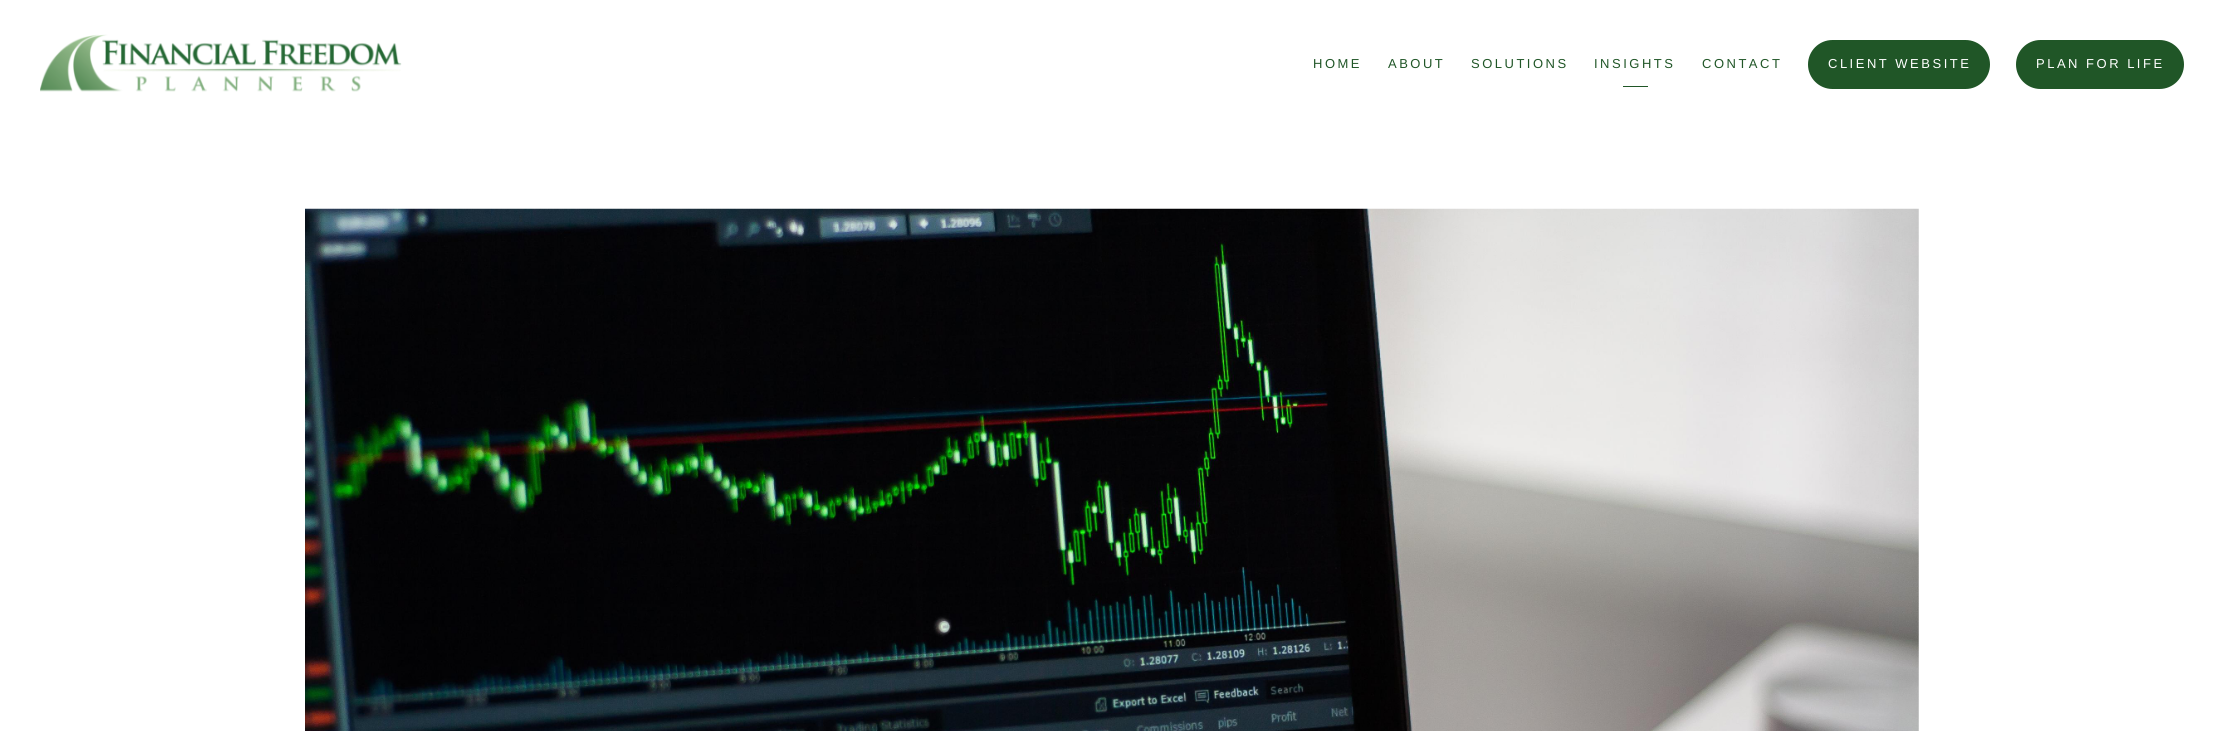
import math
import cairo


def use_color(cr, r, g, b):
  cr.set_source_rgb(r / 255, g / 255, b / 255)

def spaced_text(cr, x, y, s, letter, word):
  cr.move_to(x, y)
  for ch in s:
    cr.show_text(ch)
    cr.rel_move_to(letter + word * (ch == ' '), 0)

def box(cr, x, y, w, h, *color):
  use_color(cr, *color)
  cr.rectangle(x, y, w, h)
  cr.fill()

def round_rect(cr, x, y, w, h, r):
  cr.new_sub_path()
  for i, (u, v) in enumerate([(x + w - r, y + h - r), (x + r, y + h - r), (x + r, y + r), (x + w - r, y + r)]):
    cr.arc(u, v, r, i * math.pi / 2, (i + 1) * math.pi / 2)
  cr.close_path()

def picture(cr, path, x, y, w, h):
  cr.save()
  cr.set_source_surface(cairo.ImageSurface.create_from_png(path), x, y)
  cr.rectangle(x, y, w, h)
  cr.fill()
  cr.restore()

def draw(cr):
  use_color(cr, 255, 255, 255)
  cr.paint()
  picture(cr, "img_01.png", 40, 34, 362, 58)
  box(cr, 1623, 86, 25, 1, 32, 86, 39)
  round_rect(cr, 1808, 40, 182, 49, 24.5)
  cr.fill()
  round_rect(cr, 2016, 40, 168, 49, 24.5)
  cr.fill()
  picture(cr, "img_02.png", 305, 208, 1614, 523)
  cr.select_font_face("Liberation Sans")
  cr.set_font_size(13)
  spaced_text(cr, 1313, 68, "HOME", 2.5, 0)
  spaced_text(cr, 1388, 68, "ABOUT", 2.5, 0)
  spaced_text(cr, 1471, 68, "SOLUTIONS", 2.5, 0)
  spaced_text(cr, 1594, 68, "INSIGHTS", 2.5, 0)
  spaced_text(cr, 1702, 68, "CONTACT", 2.5, 0)
  use_color(cr, 255, 255, 255)
  spaced_text(cr, 1828, 68, "CLIENT WEBSITE", 2.5, 0)
  spaced_text(cr, 2036, 68, "PLAN FOR LIFE", 2.5, 0)


surface = cairo.ImageSurface(cairo.FORMAT_RGB24, 2223, 731)
cr = cairo.Context(surface)
options = cairo.FontOptions()
options.set_hint_metrics(cairo.HINT_METRICS_OFF)
options.set_hint_style(cairo.HINT_STYLE_NONE)
cr.set_font_options(options)
cr.set_miter_limit(4)
draw(cr)
surface.write_to_png("out.png")
